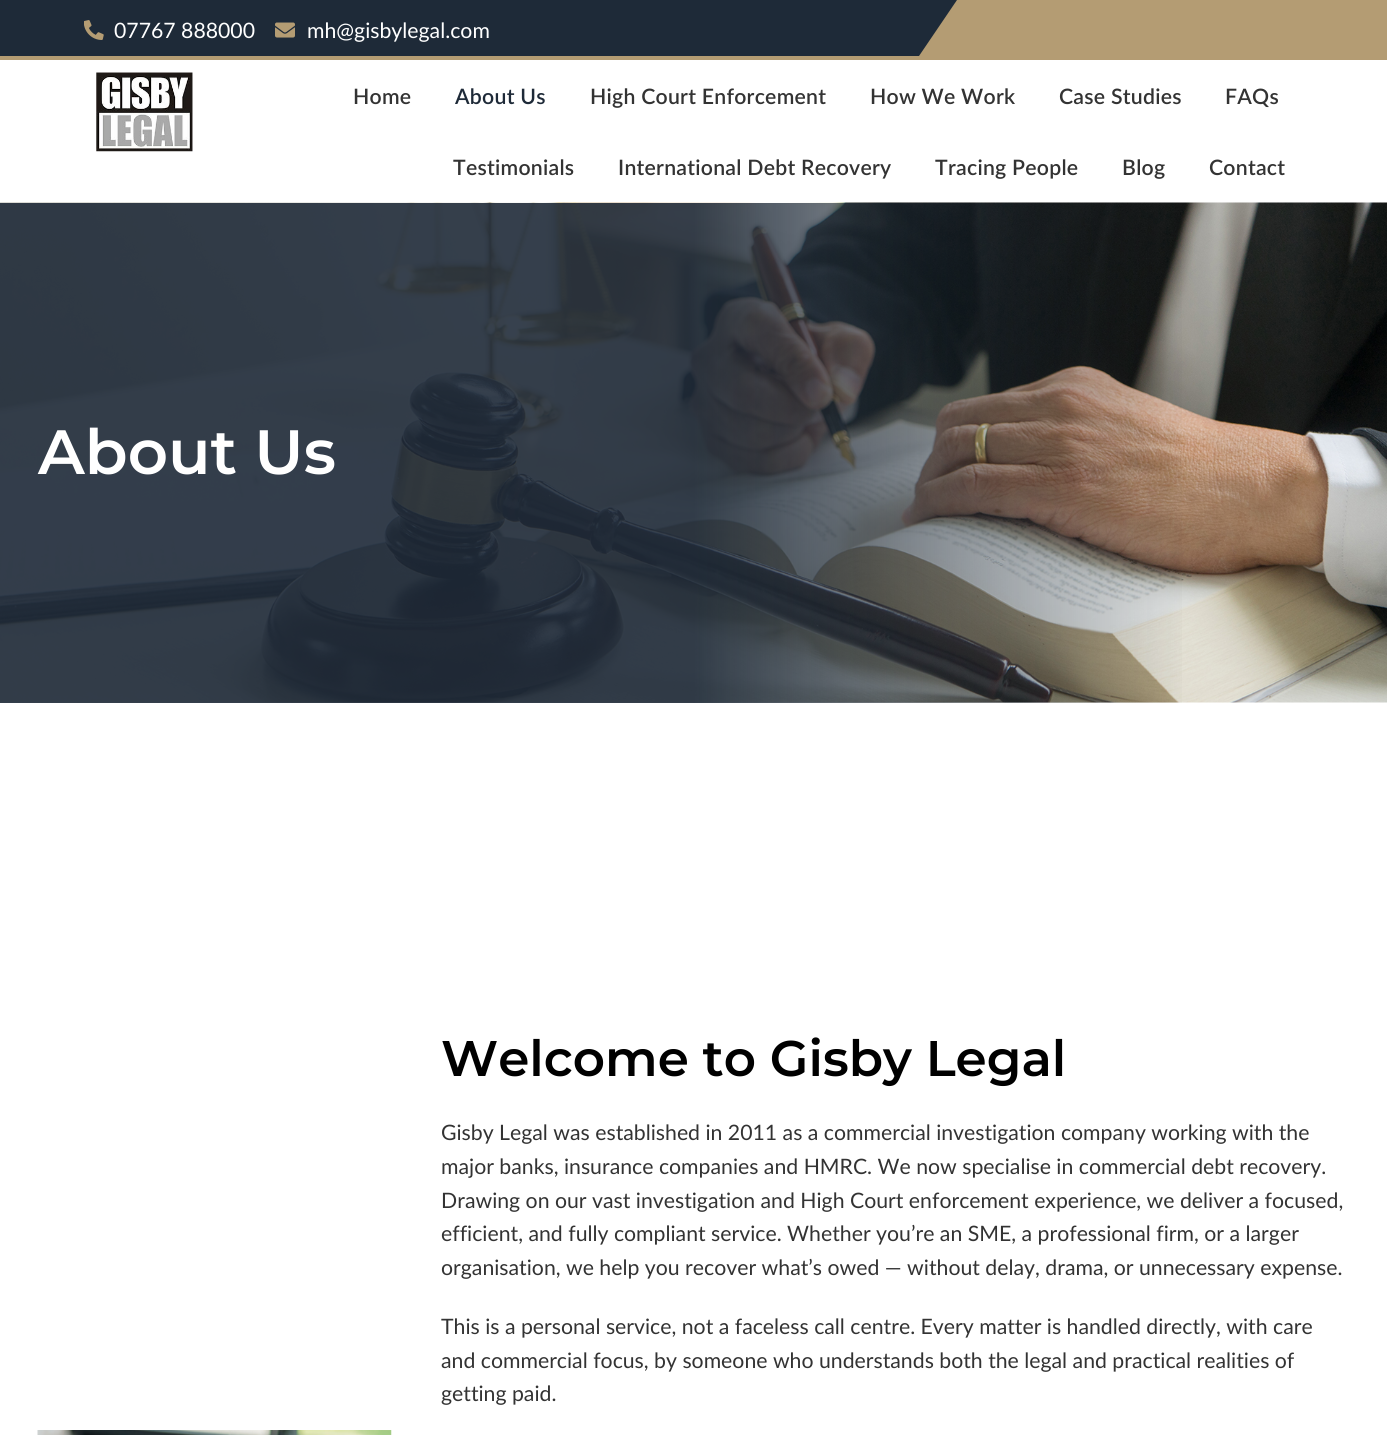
import math
import cairo


def use_color(cr, r, g, b):
  cr.set_source_rgb(r / 255, g / 255, b / 255)

def text(cr, x, y, s, family, size, color, bold=False, italic=False):
  cr.select_font_face(family, cairo.FONT_SLANT_ITALIC if italic else cairo.FONT_SLANT_NORMAL, cairo.FONT_WEIGHT_BOLD if bold else cairo.FONT_WEIGHT_NORMAL)
  cr.set_font_size(size)
  use_color(cr, *color)
  cr.move_to(x, y)
  cr.show_text(s)

def spaced_text(cr, x, y, s, letter, word):
  cr.move_to(x, y)
  for ch in s:
    cr.show_text(ch)
    cr.rel_move_to(letter + word * (ch == ' '), 0)

def box(cr, x, y, w, h, *color):
  use_color(cr, *color)
  cr.rectangle(x, y, w, h)
  cr.fill()

def picture(cr, path, x, y, w, h):
  cr.save()
  cr.set_source_surface(cairo.ImageSurface.create_from_png(path), x, y)
  cr.rectangle(x, y, w, h)
  cr.fill()
  cr.restore()

def draw(cr):
  use_color(cr, 255, 255, 255)
  cr.paint()
  box(cr, 0, 0, 1387, 60, 180, 156, 115)
  use_color(cr, 30, 42, 56)
  cr.new_path()
  cr.move_to(0, 0)
  cr.line_to(0, 56)
  cr.line_to(919, 56)
  cr.line_to(957, 0)
  cr.close_path()
  cr.fill()
  picture(cr, "img_01.png", 84, 20, 20, 20)
  picture(cr, "img_02.png", 275, 22, 20, 16)
  picture(cr, "img_03.png", 96, 72, 97, 80)
  picture(cr, "img_04.png", 0, 202, 1387, 501)
  gradient = cairo.LinearGradient(0, 453, 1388, 452)
  gradient.add_color_stop_rgba(0.5, 0.118, 0.165, 0.22, 0.89)
  gradient.add_color_stop_rgba(0.86, 0.118, 0.165, 0.22, 0)
  cr.set_source(gradient)
  cr.rectangle(0, 203, 1182, 500)
  cr.fill()
  picture(cr, "img_05.png", 37, 1430, 355, 5)
  text(cr, 114, 38, "07767 888000", "Lato", 21.25, (255, 255, 255))
  text(cr, 307, 38, "mh@gisbylegal.com", "Lato", 21.25, (255, 255, 255))
  cr.select_font_face("Lato SemiBold")
  use_color(cr, 51, 51, 51)
  spaced_text(cr, 353, 104, "Home", 0.25, 0)
  use_color(cr, 30, 42, 56)
  spaced_text(cr, 455, 104, "About Us", 0.25, 0)
  use_color(cr, 51, 51, 51)
  spaced_text(cr, 590, 104, "High Court Enforcement", 0.25, 0)
  spaced_text(cr, 870, 104, "How We Work", 0.25, 0)
  spaced_text(cr, 1059, 104, "Case Studies", 0.25, 0)
  spaced_text(cr, 1225, 104, "FAQs", 0.25, 0)
  spaced_text(cr, 453, 175, "Testimonials", 0.25, 0)
  spaced_text(cr, 618, 175, "International Debt Recovery", 0.25, 0)
  spaced_text(cr, 935, 175, "Tracing People", 0.25, 0)
  spaced_text(cr, 1122, 175, "Blog", 0.25, 0)
  spaced_text(cr, 1209, 175, "Contact", 0.25, 0)
  text(cr, 38, 474, "About Us", "Montserrat SemiBold", 62.5, (255, 255, 255))
  text(cr, 441, 1076, "Welcome to Gisby Legal", "Montserrat SemiBold", 50, (0, 0, 0))
  text(cr, 441, 1140, "Gisby Legal was established in 2011 as a commercial investigation company working with the", "Lato", 21.25, (51, 51, 51))
  text(cr, 441, 1174, "major banks, insurance companies and HMRC. We now specialise in commercial debt recovery.", "Lato", 21.25, (51, 51, 51))
  text(cr, 441, 1208, "Drawing on our vast investigation and High Court enforcement experience, we deliver a focused,", "Lato", 21.25, (51, 51, 51))
  text(cr, 441, 1241, "efficient, and fully compliant service. Whether you’re an SME, a professional firm, or a larger", "Lato", 21.25, (51, 51, 51))
  text(cr, 441, 1275, "organisation, we help you recover what’s owed — without delay, drama, or unnecessary expense.", "Lato", 21.25, (51, 51, 51))
  text(cr, 441, 1334, "This is a personal service, not a faceless call centre. Every matter is handled directly, with care", "Lato", 21.25, (51, 51, 51))
  text(cr, 441, 1368, "and commercial focus, by someone who understands both the legal and practical realities of", "Lato", 21.25, (51, 51, 51))
  text(cr, 441, 1401, "getting paid.", "Lato", 21.25, (51, 51, 51))


surface = cairo.ImageSurface(cairo.FORMAT_RGB24, 1387, 1435)
cr = cairo.Context(surface)
options = cairo.FontOptions()
options.set_hint_metrics(cairo.HINT_METRICS_OFF)
options.set_hint_style(cairo.HINT_STYLE_NONE)
cr.set_font_options(options)
cr.set_miter_limit(4)
draw(cr)
surface.write_to_png("out.png")
